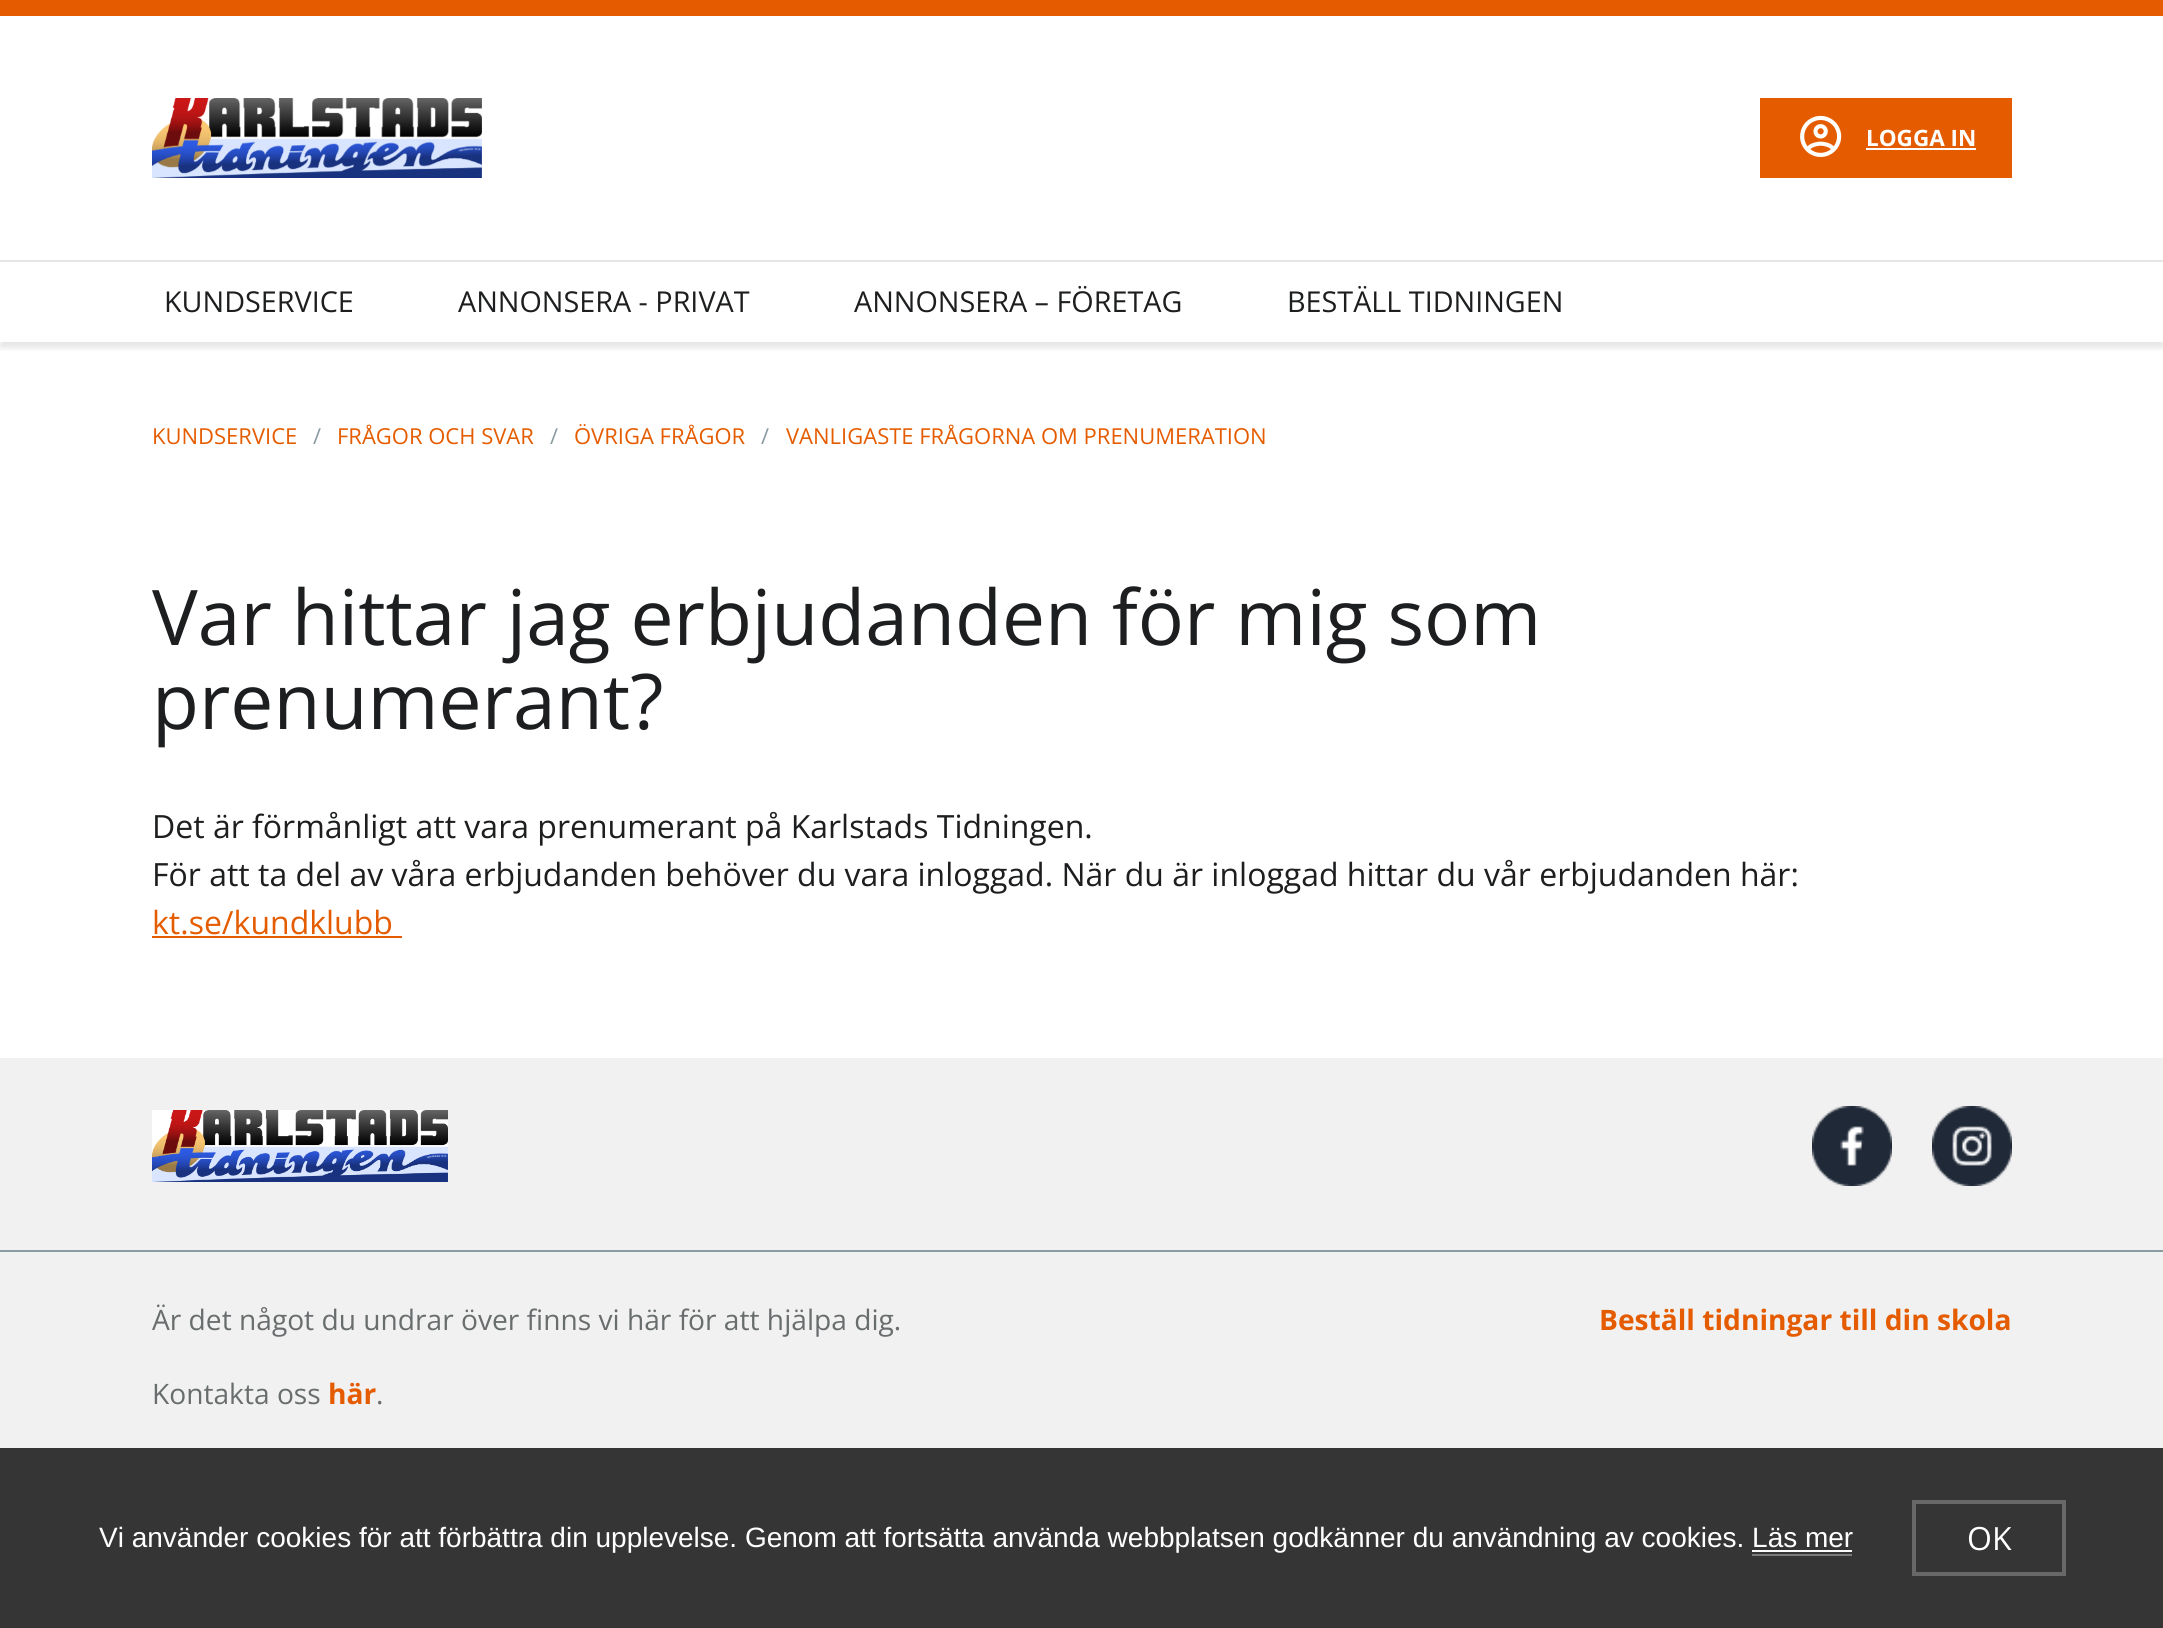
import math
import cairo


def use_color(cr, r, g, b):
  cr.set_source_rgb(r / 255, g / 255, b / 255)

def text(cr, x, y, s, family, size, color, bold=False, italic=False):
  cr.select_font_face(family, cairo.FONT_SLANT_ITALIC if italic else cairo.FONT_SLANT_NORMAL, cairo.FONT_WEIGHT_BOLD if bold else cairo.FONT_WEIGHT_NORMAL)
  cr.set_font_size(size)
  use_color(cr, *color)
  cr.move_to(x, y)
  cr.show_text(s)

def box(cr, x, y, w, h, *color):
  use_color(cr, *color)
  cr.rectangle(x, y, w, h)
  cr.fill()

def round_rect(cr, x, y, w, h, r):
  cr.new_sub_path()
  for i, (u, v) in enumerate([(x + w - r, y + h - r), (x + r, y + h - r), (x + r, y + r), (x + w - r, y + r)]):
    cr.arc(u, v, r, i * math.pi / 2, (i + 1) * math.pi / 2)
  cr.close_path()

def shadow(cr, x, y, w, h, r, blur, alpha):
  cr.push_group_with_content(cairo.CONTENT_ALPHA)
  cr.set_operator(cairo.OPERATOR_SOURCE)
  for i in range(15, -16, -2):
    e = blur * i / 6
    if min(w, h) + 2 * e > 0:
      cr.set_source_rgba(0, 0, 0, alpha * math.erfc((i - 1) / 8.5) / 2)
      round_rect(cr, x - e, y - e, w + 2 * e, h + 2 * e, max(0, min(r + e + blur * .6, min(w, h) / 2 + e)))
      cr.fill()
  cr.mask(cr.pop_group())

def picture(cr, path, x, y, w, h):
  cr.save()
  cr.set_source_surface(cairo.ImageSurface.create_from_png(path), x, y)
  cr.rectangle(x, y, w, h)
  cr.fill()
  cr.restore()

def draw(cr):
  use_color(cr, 241, 241, 241)
  cr.paint()
  box(cr, 0, 0, 2163, 16, 229, 92, 0)
  box(cr, 0, 16, 2163, 1042, 255, 255, 255)
  cr.save()
  cr.rectangle(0, 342, 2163, 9)
  cr.clip()
  use_color(cr, 0, 0, 0)
  shadow(cr, 0, 268, 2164, 80, 0, 3, 0.1)
  cr.restore()
  box(cr, 0, 260, 2163, 2, 229, 229, 229)
  picture(cr, "img_01.png", 152, 98, 330, 80)
  box(cr, 1760, 98, 252, 80, 229, 92, 0)
  picture(cr, "img_02.png", 1800, 115, 42, 42)
  box(cr, 1866, 148, 110, 2, 255, 255, 255)
  box(cr, 152, 936, 250, 2, 229, 92, 0)
  picture(cr, "img_03.png", 152, 1110, 296, 72)
  picture(cr, "img_04.png", 1812, 1106, 80, 80)
  picture(cr, "img_05.png", 1932, 1106, 80, 80)
  box(cr, 0, 1250, 2163, 2, 138, 155, 161)
  box(cr, 0, 1448, 2163, 180, 53, 53, 53)
  box(cr, 1752, 1550, 100, 2, 255, 255, 255)
  box(cr, 1752, 1554, 100, 2, 123, 123, 123)
  cr.rectangle(1914, 1502, 150, 72)
  use_color(cr, 104, 104, 104)
  cr.set_line_width(4)
  cr.stroke()
  text(cr, 1866, 146, "LOGGA IN", "Open Sans", 22.5, (255, 255, 255), bold=True)
  text(cr, 164, 312, "KUNDSERVICE", "Open Sans", 28.75, (29, 30, 31))
  text(cr, 458, 312, "ANNONSERA - PRIVAT", "Open Sans", 28.75, (29, 30, 31))
  text(cr, 854, 312, "ANNONSERA – FÖRETAG", "Open Sans", 28.75, (29, 30, 31))
  text(cr, 1287, 312, "BESTÄLL TIDNINGEN", "Open Sans", 28.75, (29, 30, 31))
  text(cr, 152, 444, "KUNDSERVICE", "Open Sans", 22, (229, 92, 0))
  text(cr, 313, 444, "/", "Open Sans", 22, (138, 155, 161))
  text(cr, 337, 444, "FRÅGOR OCH SVAR", "Open Sans", 22, (229, 92, 0))
  text(cr, 550, 444, "/", "Open Sans", 22, (138, 155, 161))
  text(cr, 574, 444, "ÖVRIGA FRÅGOR", "Open Sans", 22, (229, 92, 0))
  text(cr, 761, 444, "/", "Open Sans", 22, (138, 155, 161))
  text(cr, 786, 444, "VANLIGASTE FRÅGORNA OM PRENUMERATION", "Open Sans", 22, (229, 92, 0))
  text(cr, 152, 645, "Var hittar jag erbjudanden för mig som", "Open Sans", 76.75, (29, 30, 31))
  text(cr, 152, 729, "prenumerant?", "Open Sans", 76.75, (29, 30, 31))
  text(cr, 152, 838, "Det är förmånligt att vara prenumerant på Karlstads Tidningen.", "Open Sans", 32, (29, 30, 31))
  text(cr, 152, 886, "För att ta del av våra erbjudanden behöver du vara inloggad. När du är inloggad hittar du vår erbjudanden här:", "Open Sans", 32, (29, 30, 31))
  text(cr, 152, 934, "kt.se/kundklubb", "Open Sans", 32, (229, 92, 0))
  text(cr, 152, 1330, "Är det något du undrar över finns vi här för att hjälpa dig.", "Open Sans", 28.15, (105, 109, 110))
  text(cr, 152, 1404, "Kontakta oss", "Open Sans", 28.15, (105, 109, 110))
  text(cr, 328, 1404, "här", "Open Sans", 28.15, (229, 92, 0), bold=True)
  text(cr, 376, 1404, ".", "Open Sans", 28.15, (105, 109, 110))
  text(cr, 1599, 1330, "Beställ tidningar till din skola", "Open Sans", 28.15, (229, 92, 0), bold=True)
  text(cr, 99, 1547, "Vi använder cookies för att förbättra din upplevelse. Genom att fortsätta använda webbplatsen godkänner du användning av cookies. Läs mer", "Liberation Sans", 28, (255, 255, 255))
  text(cr, 1967, 1550, "OK", "Open Sans", 32, (255, 255, 255))


surface = cairo.ImageSurface(cairo.FORMAT_RGB24, 2163, 1628)
cr = cairo.Context(surface)
options = cairo.FontOptions()
options.set_hint_metrics(cairo.HINT_METRICS_OFF)
options.set_hint_style(cairo.HINT_STYLE_NONE)
cr.set_font_options(options)
cr.set_miter_limit(4)
draw(cr)
surface.write_to_png("out.png")
